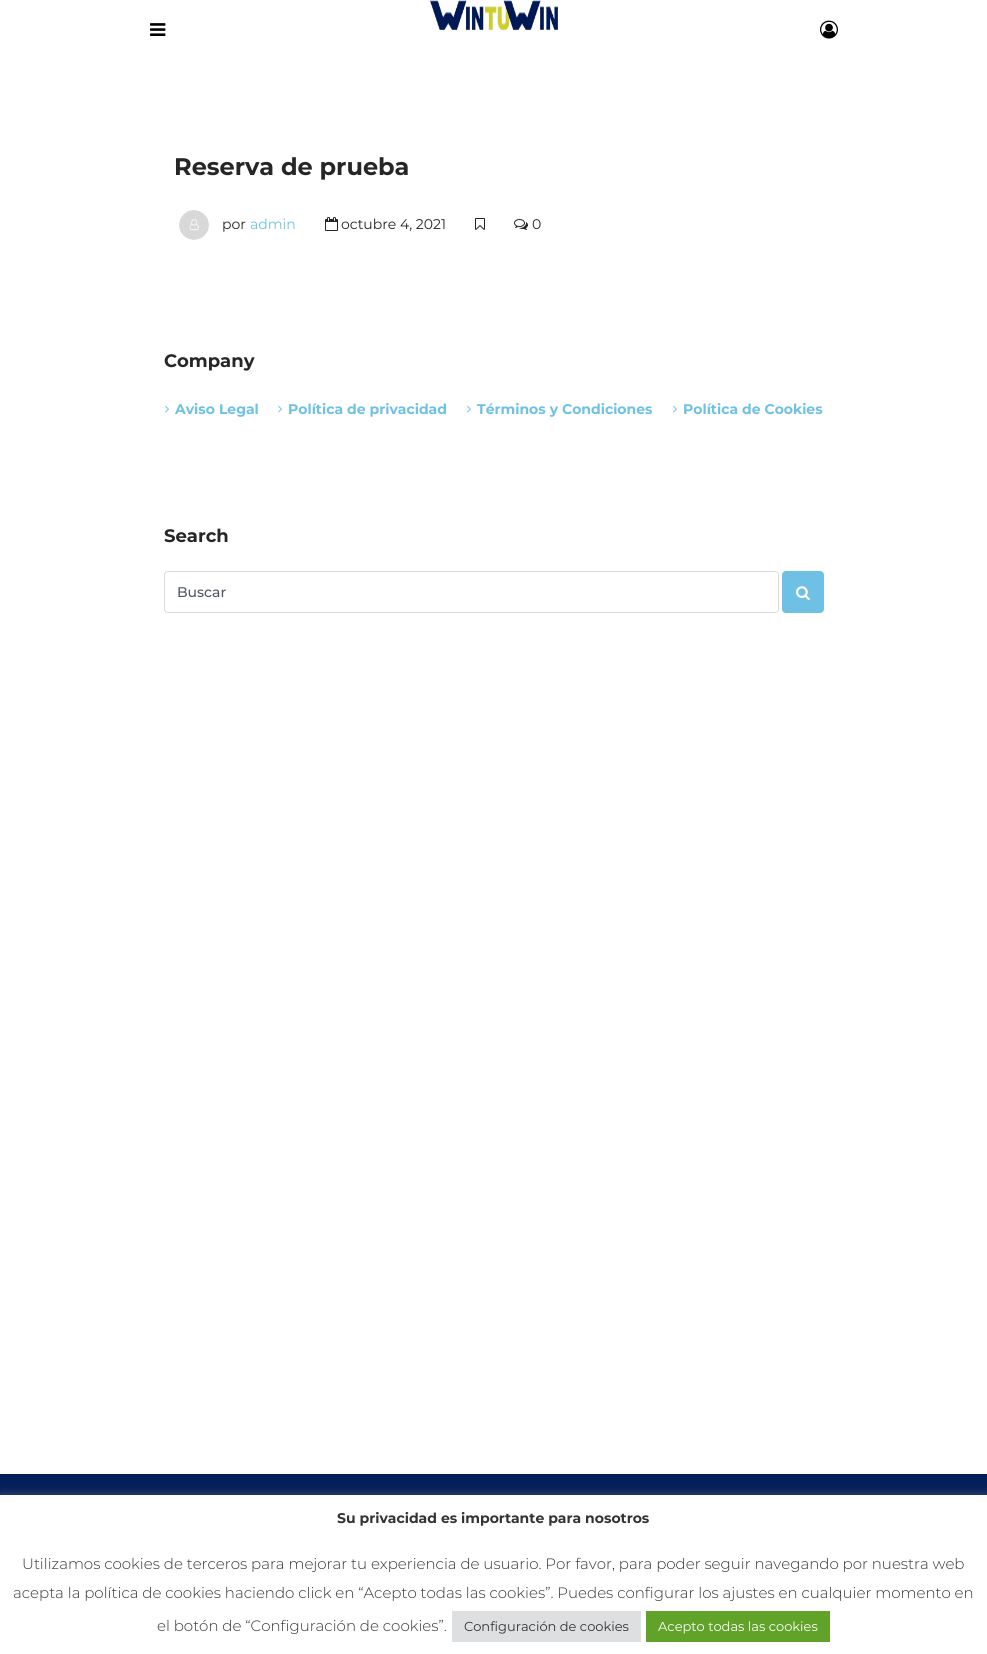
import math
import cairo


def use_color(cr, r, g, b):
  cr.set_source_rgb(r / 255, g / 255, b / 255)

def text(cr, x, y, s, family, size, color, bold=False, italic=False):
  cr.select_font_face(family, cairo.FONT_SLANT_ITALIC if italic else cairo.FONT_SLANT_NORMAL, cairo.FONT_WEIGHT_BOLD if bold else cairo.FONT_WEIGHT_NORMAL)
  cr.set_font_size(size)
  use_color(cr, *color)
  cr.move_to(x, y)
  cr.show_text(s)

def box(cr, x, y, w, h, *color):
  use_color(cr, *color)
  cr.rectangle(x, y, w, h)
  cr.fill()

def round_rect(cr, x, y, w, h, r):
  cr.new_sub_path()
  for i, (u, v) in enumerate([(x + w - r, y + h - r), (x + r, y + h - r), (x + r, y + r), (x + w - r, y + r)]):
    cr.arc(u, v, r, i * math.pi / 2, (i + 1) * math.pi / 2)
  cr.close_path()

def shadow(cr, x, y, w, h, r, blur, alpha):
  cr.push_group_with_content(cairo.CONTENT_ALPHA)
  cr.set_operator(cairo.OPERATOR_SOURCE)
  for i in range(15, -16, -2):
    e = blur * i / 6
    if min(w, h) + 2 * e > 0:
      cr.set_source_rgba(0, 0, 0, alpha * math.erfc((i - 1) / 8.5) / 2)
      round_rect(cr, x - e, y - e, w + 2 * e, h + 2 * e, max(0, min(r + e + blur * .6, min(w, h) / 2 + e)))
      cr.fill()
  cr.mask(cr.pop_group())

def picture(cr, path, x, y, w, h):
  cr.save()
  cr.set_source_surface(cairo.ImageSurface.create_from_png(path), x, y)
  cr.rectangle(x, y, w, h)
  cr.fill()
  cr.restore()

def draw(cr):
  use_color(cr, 255, 255, 255)
  cr.paint()
  picture(cr, "img_01.png", 150, 23, 16, 13)
  picture(cr, "img_02.png", 430, 0, 128, 30)
  picture(cr, "img_03.png", 820, 20, 18, 19)
  picture(cr, "img_04.png", 179, 210, 30, 30)
  picture(cr, "img_05.png", 325, 217, 13, 14)
  picture(cr, "img_06.png", 475, 218, 10, 12)
  picture(cr, "img_07.png", 514, 219, 14, 11)
  picture(cr, "img_08.png", 165, 405, 4, 8)
  picture(cr, "img_08.png", 278, 405, 4, 8)
  picture(cr, "img_08.png", 467, 405, 4, 8)
  picture(cr, "img_08.png", 673, 405, 4, 8)
  round_rect(cr, 164.5, 571.5, 614, 41, 3.5)
  use_color(cr, 216, 220, 225)
  cr.set_line_width(1)
  cr.stroke()
  use_color(cr, 110, 193, 228)
  round_rect(cr, 782.5, 571.5, 41, 41, 3.5)
  cr.fill_preserve()
  cr.stroke()
  picture(cr, "img_09.png", 796, 586, 14, 15)
  box(cr, 0, 1474, 987, 21, 3, 31, 89)
  use_color(cr, 172, 171, 171)
  shadow(cr, 0, 1494, 987, 159, 0, 5, 0.3)
  box(cr, 0, 1495, 987, 159, 255, 255, 255)
  box(cr, 452, 1611, 189, 31, 222, 223, 224)
  box(cr, 646, 1611, 184, 31, 97, 162, 41)
  text(cr, 174, 175, "Reserva de prueba", "Montserrat", 24, (38, 38, 38), bold=True)
  text(cr, 222, 229, "por", "Montserrat", 14, (38, 38, 38))
  text(cr, 250, 229, "admin", "Montserrat", 14, (110, 193, 228))
  text(cr, 341, 229, "octubre 4, 2021", "Montserrat", 14, (38, 38, 38))
  text(cr, 532, 229, "0", "Montserrat", 14, (38, 38, 38))
  text(cr, 164, 367, "Company", "Montserrat", 18, (38, 38, 38), bold=True)
  text(cr, 175, 414, "Aviso Legal", "Montserrat", 14, (110, 193, 228), bold=True)
  text(cr, 288, 414, "Política de privacidad", "Montserrat", 14, (110, 193, 228), bold=True)
  text(cr, 477, 414, "Términos y Condiciones", "Montserrat", 14, (110, 193, 228), bold=True)
  text(cr, 683, 414, "Política de Cookies", "Montserrat", 14, (110, 193, 228), bold=True)
  text(cr, 164, 542, "Search", "Montserrat", 18, (38, 38, 38), bold=True)
  text(cr, 177, 597, "Buscar", "Montserrat Medium", 14, (79, 89, 98))
  text(cr, 337, 1523, "Su privacidad es importante para nosotros", "Montserrat", 14, (51, 51, 51), bold=True)
  text(cr, 22, 1569, "Utilizamos cookies de terceros para mejorar tu experiencia de usuario. Por favor, para poder seguir navegando por nuestra web", "Montserrat Light", 15, (51, 51, 51))
  text(cr, 13, 1598, "acepta la política de cookies haciendo click en “Acepto todas las cookies”. Puedes configurar los ajustes en cualquier momento en", "Montserrat Light", 15, (51, 51, 51))
  text(cr, 157, 1631, "el botón de “Configuración de cookies”.", "Montserrat Light", 15, (51, 51, 51))
  text(cr, 464, 1631, "Configuración de cookies", "Montserrat", 13, (51, 51, 51))
  text(cr, 658, 1631, "Acepto todas las cookies", "Montserrat", 13, (255, 255, 255))


surface = cairo.ImageSurface(cairo.FORMAT_RGB24, 987, 1654)
cr = cairo.Context(surface)
options = cairo.FontOptions()
options.set_hint_metrics(cairo.HINT_METRICS_OFF)
options.set_hint_style(cairo.HINT_STYLE_NONE)
cr.set_font_options(options)
cr.set_miter_limit(4)
draw(cr)
surface.write_to_png("out.png")
